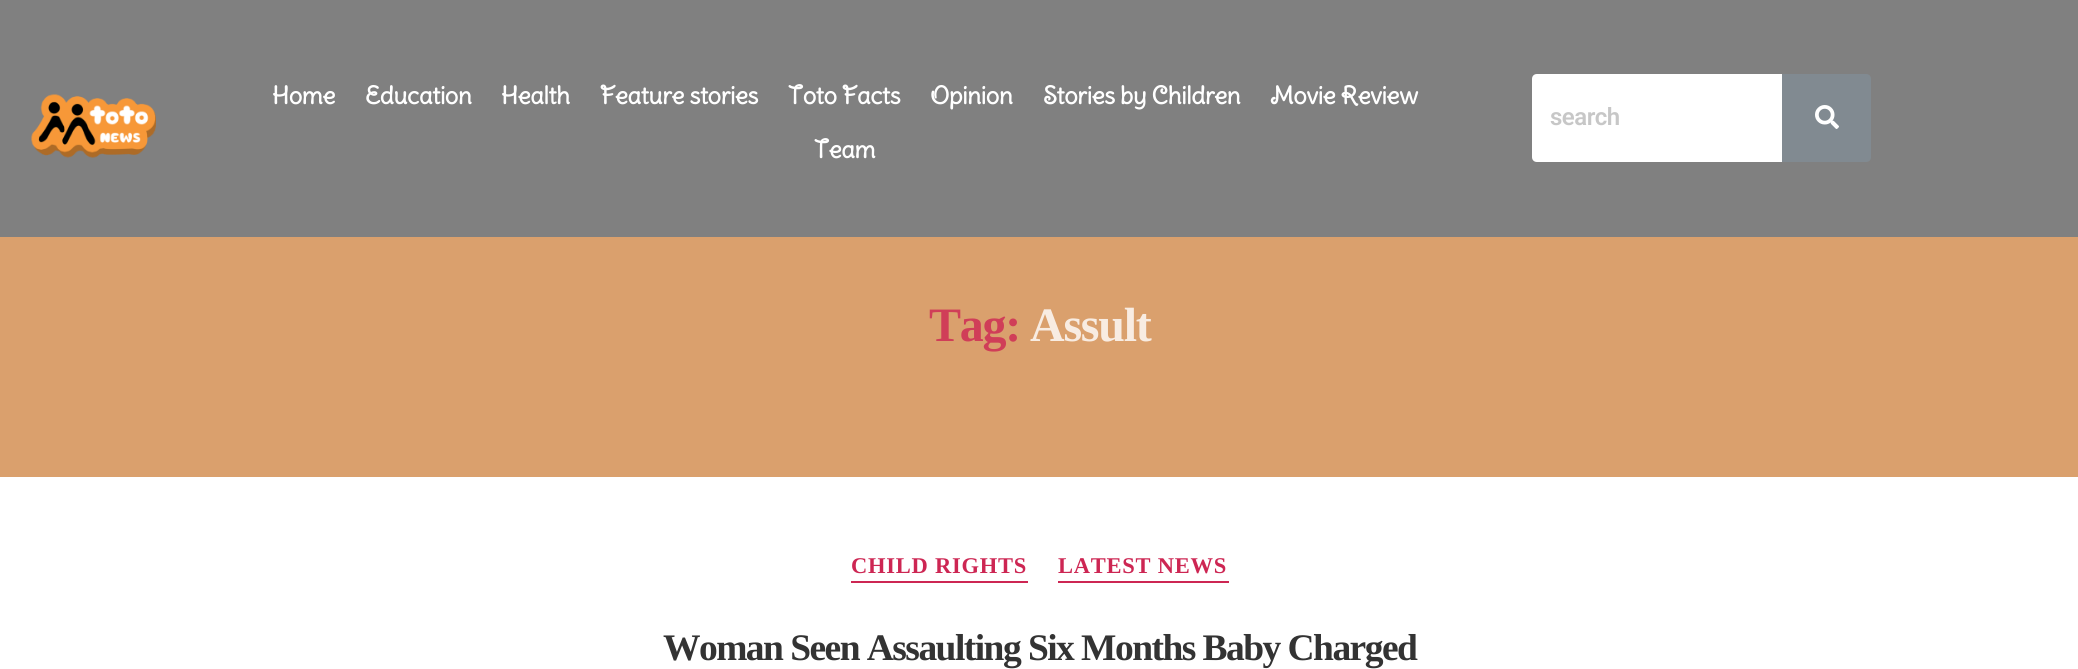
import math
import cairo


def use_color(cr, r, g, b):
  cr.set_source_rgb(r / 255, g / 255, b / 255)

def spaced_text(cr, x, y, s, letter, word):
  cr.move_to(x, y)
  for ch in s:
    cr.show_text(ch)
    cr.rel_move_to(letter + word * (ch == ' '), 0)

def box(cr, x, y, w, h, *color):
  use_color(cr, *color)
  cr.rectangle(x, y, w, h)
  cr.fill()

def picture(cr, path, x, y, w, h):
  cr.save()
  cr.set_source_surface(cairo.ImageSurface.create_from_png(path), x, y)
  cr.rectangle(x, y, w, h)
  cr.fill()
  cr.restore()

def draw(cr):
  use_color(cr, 255, 255, 255)
  cr.paint()
  box(cr, 0, 0, 2078, 237, 128, 128, 128)
  picture(cr, "img_01.png", 31, 94, 125, 64)
  use_color(cr, 255, 255, 255)
  cr.new_path()
  cr.move_to(1537, 74)
  cr.line_to(1782, 74)
  cr.line_to(1782, 162)
  cr.line_to(1537, 162)
  cr.curve_to(1534, 162, 1532, 160, 1532, 157)
  cr.line_to(1532, 79)
  cr.curve_to(1532, 76, 1534, 74, 1537, 74)
  cr.close_path()
  cr.fill()
  use_color(cr, 129, 138, 145)
  cr.new_path()
  cr.move_to(1782, 74)
  cr.line_to(1866, 74)
  cr.curve_to(1869, 74, 1871, 76, 1871, 79)
  cr.line_to(1871, 157)
  cr.curve_to(1871, 160, 1869, 162, 1866, 162)
  cr.line_to(1782, 162)
  cr.close_path()
  cr.fill()
  picture(cr, "img_02.png", 1815, 105, 24, 24)
  box(cr, 0, 237, 2078, 240, 218, 160, 109)
  box(cr, 851, 581, 177, 2, 205, 38, 83)
  box(cr, 1058, 581, 171, 2, 205, 38, 83)
  cr.select_font_face("Delius Swash Caps", cairo.FONT_SLANT_NORMAL, cairo.FONT_WEIGHT_BOLD)
  cr.set_font_size(24)
  use_color(cr, 255, 255, 255)
  spaced_text(cr, 272, 104, "Home", -0.4, 0)
  spaced_text(cr, 365, 104, "Education", -0.4, 0)
  spaced_text(cr, 501, 104, "Health", -0.4, 0)
  spaced_text(cr, 600, 104, "Feature stories", -0.4, 0)
  spaced_text(cr, 788, 104, "Toto Facts", -0.4, 0)
  spaced_text(cr, 930, 104, "Opinion", -0.4, 0)
  spaced_text(cr, 1043, 104, "Stories by Children", -0.4, 0)
  spaced_text(cr, 1270, 104, "Movie Review", -0.4, 0)
  spaced_text(cr, 814, 158, "Team", -0.4, 0)
  cr.select_font_face("Roboto SemiBold")
  use_color(cr, 199, 199, 199)
  spaced_text(cr, 1550, 125, "search", -0.5, 0)
  cr.select_font_face("Liberation Serif", cairo.FONT_SLANT_NORMAL, cairo.FONT_WEIGHT_BOLD)
  cr.set_font_size(48)
  use_color(cr, 208, 62, 88)
  spaced_text(cr, 929, 341, "Tag:", -1.25, 0)
  use_color(cr, 248, 236, 226)
  spaced_text(cr, 1030, 341, "Assult", -1.25, 0)
  cr.set_font_size(22.5)
  use_color(cr, 205, 38, 83)
  spaced_text(cr, 851, 573, "CHILD RIGHTS", 0.75, 0)
  spaced_text(cr, 1058, 573, "LATEST NEWS", 0.75, 0)
  cr.set_font_size(37.5)
  use_color(cr, 51, 51, 51)
  spaced_text(cr, 663, 660, "Woman Seen Assaulting Six Months Baby Charged", -1.55, 0)


surface = cairo.ImageSurface(cairo.FORMAT_RGB24, 2078, 669)
cr = cairo.Context(surface)
options = cairo.FontOptions()
options.set_hint_metrics(cairo.HINT_METRICS_OFF)
options.set_hint_style(cairo.HINT_STYLE_NONE)
cr.set_font_options(options)
cr.set_miter_limit(4)
draw(cr)
surface.write_to_png("out.png")
